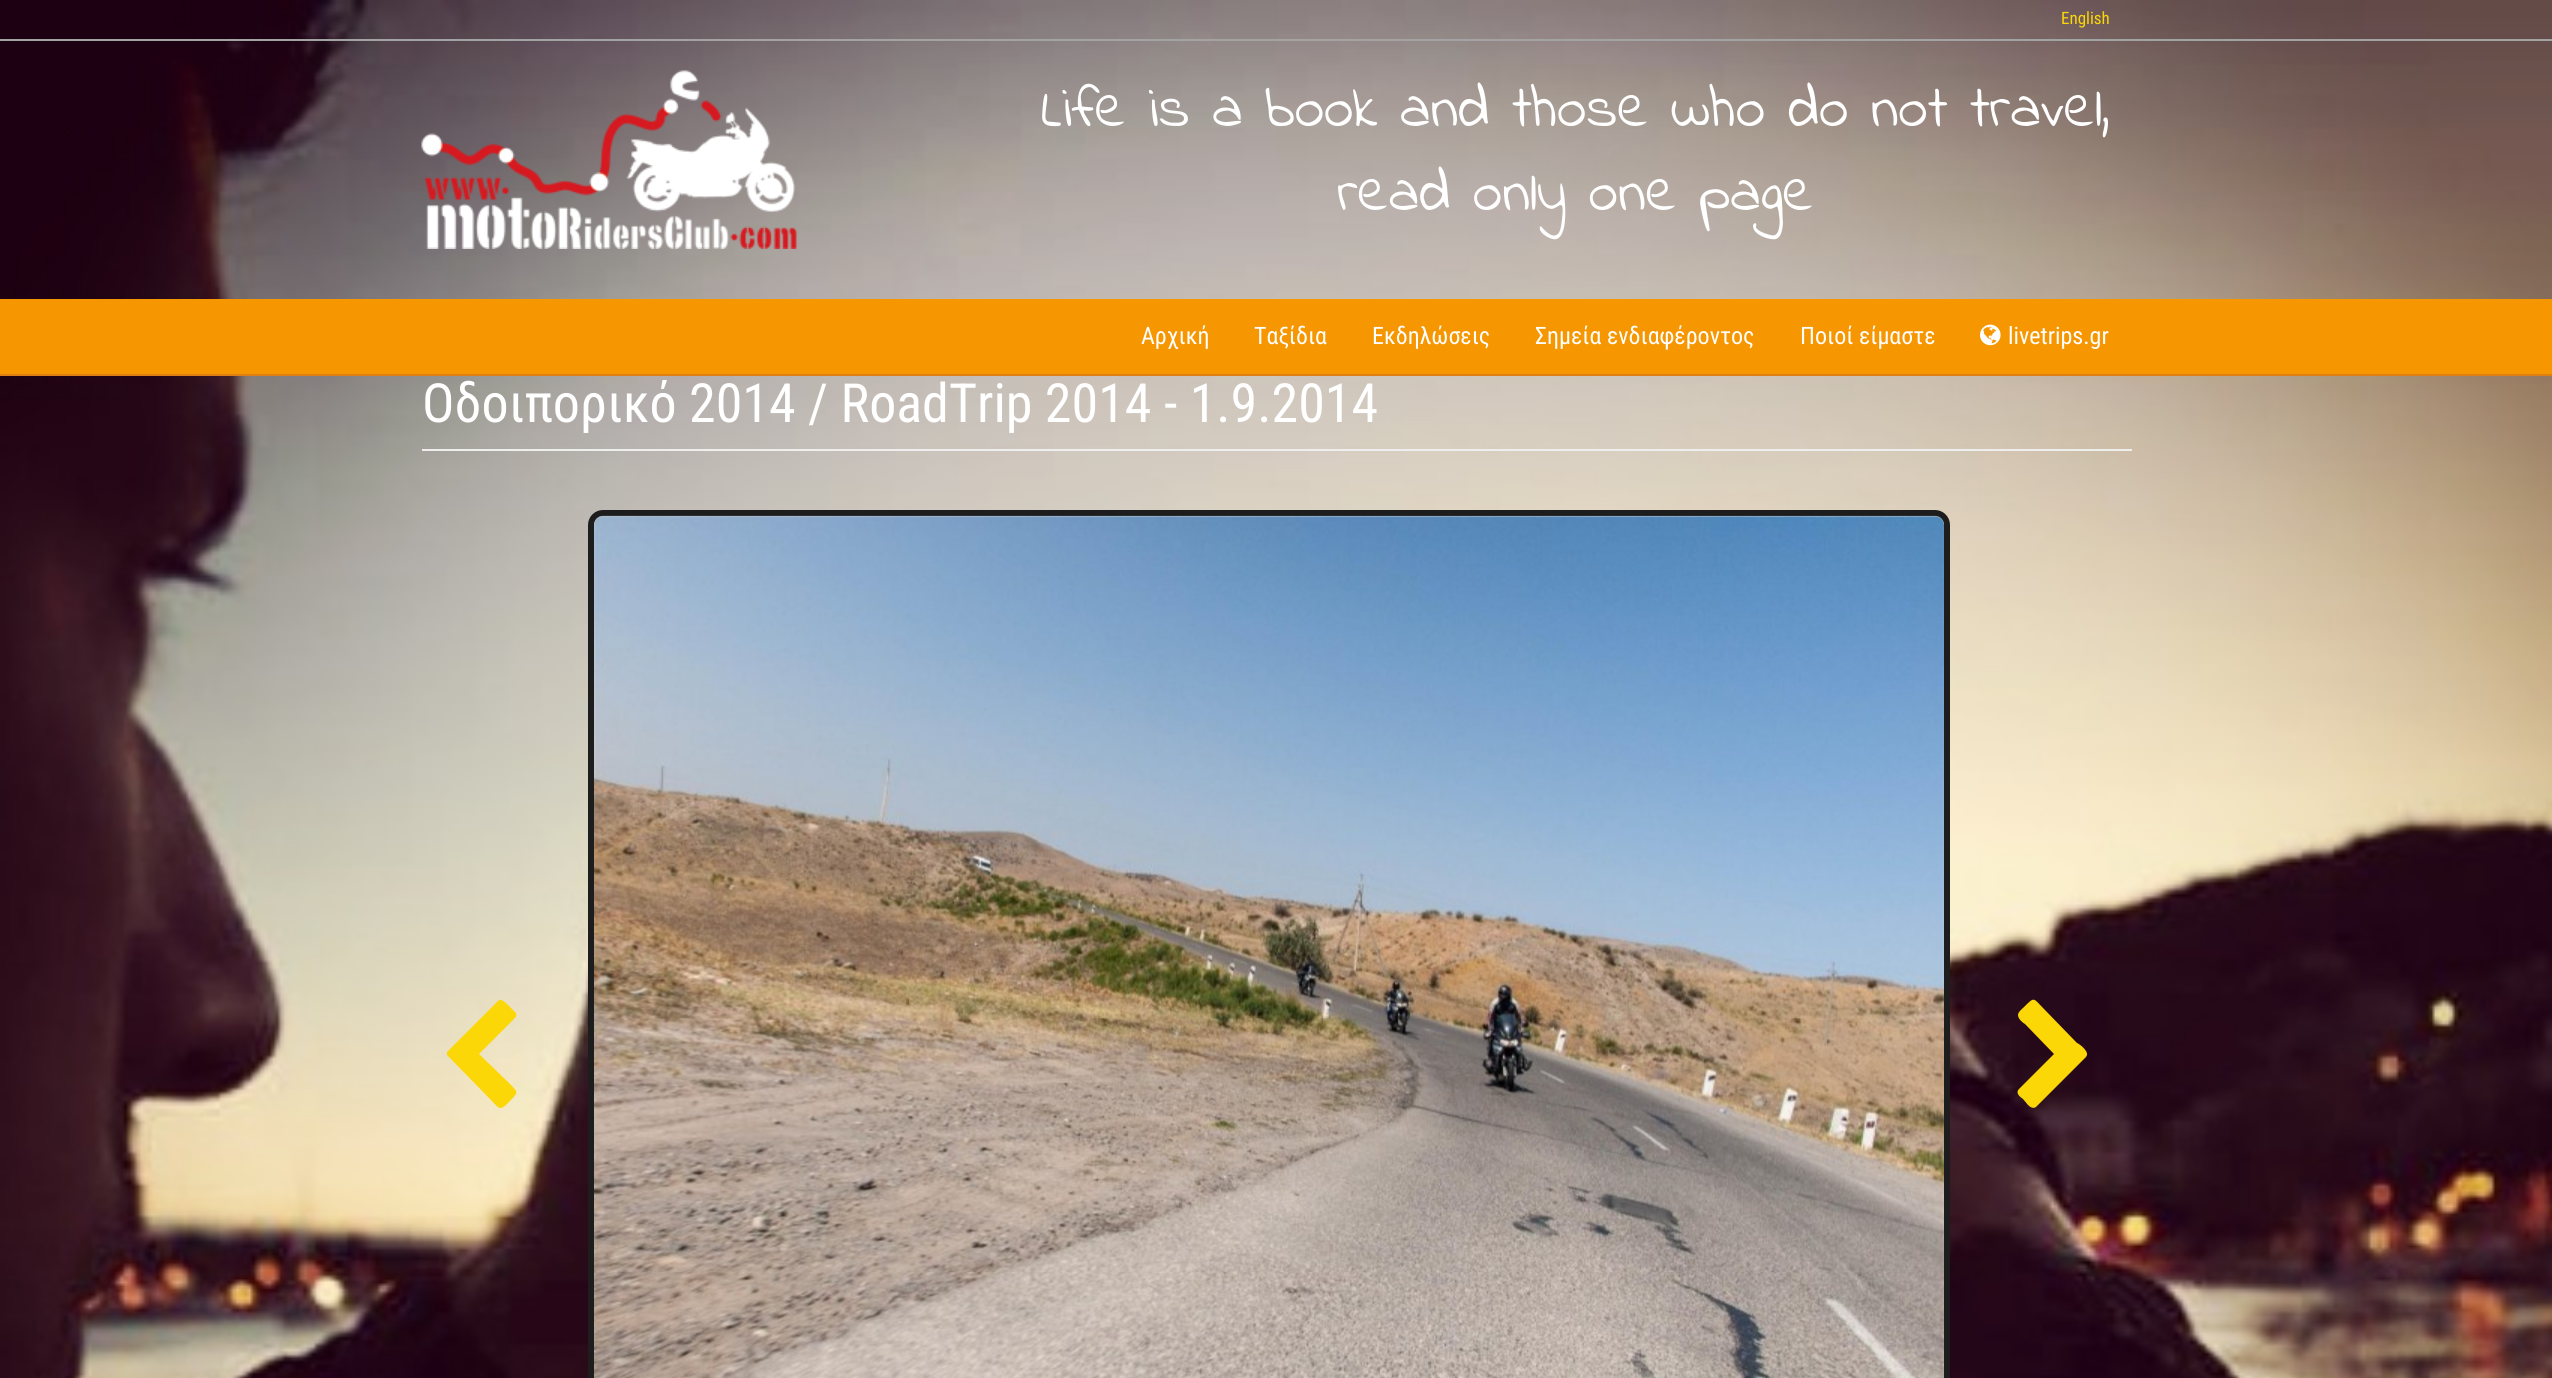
import math
import cairo


def use_color(cr, r, g, b):
  cr.set_source_rgb(r / 255, g / 255, b / 255)

def text(cr, x, y, s, family, size, color, bold=False, italic=False):
  cr.select_font_face(family, cairo.FONT_SLANT_ITALIC if italic else cairo.FONT_SLANT_NORMAL, cairo.FONT_WEIGHT_BOLD if bold else cairo.FONT_WEIGHT_NORMAL)
  cr.set_font_size(size)
  use_color(cr, *color)
  cr.move_to(x, y)
  cr.show_text(s)

def box(cr, x, y, w, h, *color):
  use_color(cr, *color)
  cr.rectangle(x, y, w, h)
  cr.fill()

def round_rect(cr, x, y, w, h, r):
  cr.new_sub_path()
  for i, (u, v) in enumerate([(x + w - r, y + h - r), (x + r, y + h - r), (x + r, y + r), (x + w - r, y + r)]):
    cr.arc(u, v, r, i * math.pi / 2, (i + 1) * math.pi / 2)
  cr.close_path()

def picture(cr, path, x, y, w, h):
  cr.save()
  cr.set_source_surface(cairo.ImageSurface.create_from_png(path), x, y)
  cr.rectangle(x, y, w, h)
  cr.fill()
  cr.restore()

def draw(cr):
  use_color(cr, 255, 255, 255)
  cr.paint()
  picture(cr, "img_01.png", 0, 0, 2552, 1378)
  box(cr, 0, 39, 2552, 2, 163, 163, 163)
  picture(cr, "img_02.png", 421, 70, 376, 179)
  box(cr, 0, 299, 2552, 75, 246, 150, 1)
  box(cr, 0, 374, 2552, 2, 223, 127, 17)
  picture(cr, "img_03.png", 1980, 324, 21, 22)
  box(cr, 422, 449, 1710, 2, 238, 238, 238)
  round_rect(cr, 591, 513, 1356, 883, 12)
  use_color(cr, 29, 29, 29)
  cr.set_line_width(6)
  cr.stroke()
  picture(cr, "img_04.png", 594, 515, 1350, 863)
  use_color(cr, 252, 215, 8)
  cr.new_path()
  cr.move_to(515, 1018)
  cr.line_to(479, 1054)
  cr.line_to(509, 1083)
  cr.curve_to(520, 1094, 518, 1092, 508, 1103)
  cr.curve_to(499, 1112, 499, 1108, 489, 1098)
  cr.line_to(447, 1055)
  cr.curve_to(447, 1054, 447, 1053, 447, 1052)
  cr.line_to(498, 1001)
  cr.curve_to(501, 998, 505, 1002, 508, 1005)
  cr.line_to(516, 1013)
  cr.curve_to(517, 1015, 516, 1017, 515, 1018)
  cr.close_path()
  cr.fill()
  cr.new_path()
  cr.move_to(2086, 1057)
  cr.line_to(2036, 1107)
  cr.curve_to(2033, 1109, 2030, 1107, 2028, 1105)
  cr.line_to(2023, 1099)
  cr.curve_to(2020, 1097, 2015, 1093, 2019, 1089)
  cr.line_to(2054, 1054)
  cr.line_to(2025, 1024)
  cr.curve_to(2023, 1023, 2018, 1019, 2018, 1015)
  cr.curve_to(2018, 1012, 2022, 1009, 2024, 1007)
  cr.curve_to(2035, 996, 2033, 998, 2044, 1009)
  cr.line_to(2077, 1043)
  cr.curve_to(2078, 1043, 2088, 1050, 2087, 1055)
  cr.close_path()
  cr.fill()
  text(cr, 2061, 24, "English", "Roboto Condensed", 17, (252, 215, 8))
  text(cr, 1041, 126, "Life is a book and those who do not travel,", "Indie Flower", 60, (255, 255, 255))
  text(cr, 1337, 210, "read only one page", "Indie Flower", 60, (255, 255, 255))
  text(cr, 1141, 344, "Αρχική", "Roboto Condensed", 24, (255, 255, 255))
  text(cr, 1254, 344, "Ταξίδια", "Roboto Condensed", 24, (255, 255, 255))
  text(cr, 1372, 344, "Εκδηλώσεις", "Roboto Condensed", 24, (255, 255, 255))
  text(cr, 1535, 344, "Σημεία ενδιαφέροντος", "Roboto Condensed", 24, (255, 255, 255))
  text(cr, 1800, 344, "Ποιοί είμαστε", "Roboto Condensed", 24, (255, 255, 255))
  text(cr, 2008, 344, "livetrips.gr", "Roboto Condensed", 24, (255, 255, 255))
  text(cr, 422, 422, "Οδοιπορικό 2014 / RoadTrip 2014 - 1.9.2014", "Roboto Condensed", 54, (255, 255, 255))


surface = cairo.ImageSurface(cairo.FORMAT_RGB24, 2552, 1378)
cr = cairo.Context(surface)
options = cairo.FontOptions()
options.set_hint_metrics(cairo.HINT_METRICS_OFF)
options.set_hint_style(cairo.HINT_STYLE_NONE)
cr.set_font_options(options)
cr.set_miter_limit(4)
draw(cr)
surface.write_to_png("out.png")
